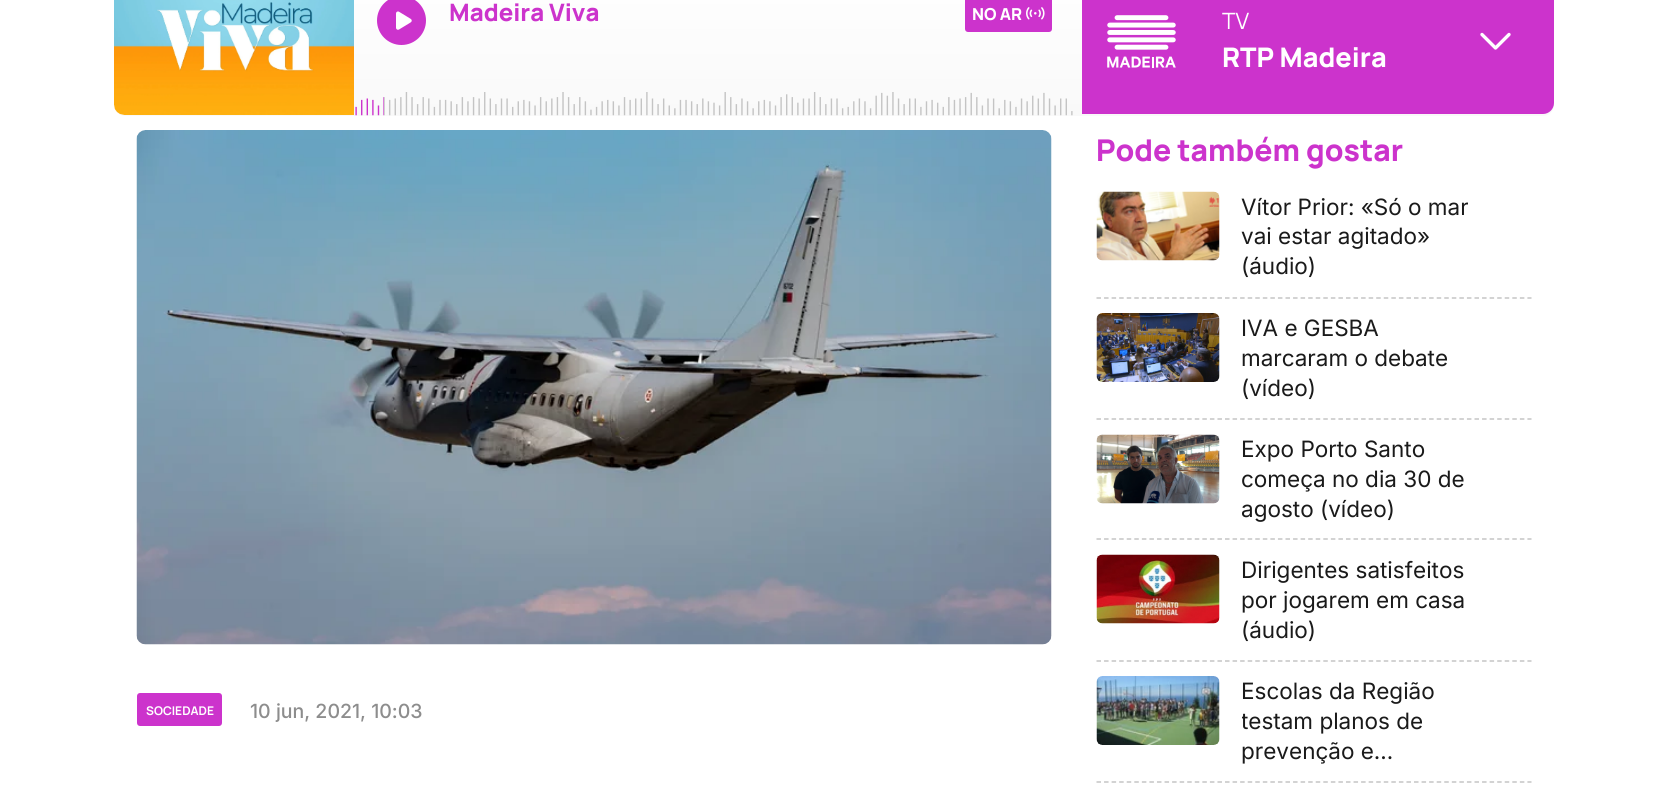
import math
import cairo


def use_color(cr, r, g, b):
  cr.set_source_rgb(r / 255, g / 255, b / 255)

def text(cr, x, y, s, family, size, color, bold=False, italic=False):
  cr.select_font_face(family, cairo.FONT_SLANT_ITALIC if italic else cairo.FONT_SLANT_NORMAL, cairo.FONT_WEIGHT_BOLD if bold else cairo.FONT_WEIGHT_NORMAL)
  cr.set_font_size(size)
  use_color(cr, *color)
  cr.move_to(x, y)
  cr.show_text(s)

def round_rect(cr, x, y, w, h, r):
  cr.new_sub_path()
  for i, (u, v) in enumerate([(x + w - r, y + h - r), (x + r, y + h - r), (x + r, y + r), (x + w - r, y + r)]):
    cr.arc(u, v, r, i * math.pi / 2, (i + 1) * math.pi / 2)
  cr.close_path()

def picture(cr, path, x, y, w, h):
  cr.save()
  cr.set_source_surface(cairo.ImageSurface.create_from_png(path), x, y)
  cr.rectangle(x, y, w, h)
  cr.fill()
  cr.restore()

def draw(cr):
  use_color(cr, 255, 255, 255)
  cr.paint()
  gradient = cairo.LinearGradient(834, 266, 834, -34)
  gradient.add_color_stop_rgba(0, 0.953, 0.953, 0.953, 1)
  gradient.add_color_stop_rgba(1, 1, 1, 1, 1)
  cr.set_source(gradient)
  cr.new_path()
  cr.move_to(114, -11)
  cr.line_to(1554, -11)
  cr.line_to(1554, 105)
  cr.curve_to(1554, 111, 1549, 116, 1543, 116)
  cr.line_to(125, 116)
  cr.curve_to(119, 116, 114, 111, 114, 105)
  cr.close_path()
  cr.fill()
  picture(cr, "img_01.png", 114, 0, 240, 115)
  use_color(cr, 204, 51, 204)
  cr.arc(401.5, 20.5, 24.5, 0, 2 * math.pi)
  cr.fill()
  picture(cr, "img_02.png", 396, 11, 16, 19)
  round_rect(cr, 965, -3, 87, 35, 3)
  cr.fill()
  picture(cr, "img_03.png", 1026, 7, 19, 13)
  picture(cr, "img_04.png", 355, 92, 718, 24)
  cr.new_path()
  cr.move_to(1082, -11)
  cr.line_to(1543, -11)
  cr.curve_to(1549, -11, 1554, -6, 1554, 0)
  cr.line_to(1554, 103)
  cr.curve_to(1554, 109, 1549, 114, 1543, 114)
  cr.line_to(1082, 114)
  cr.close_path()
  cr.fill()
  picture(cr, "img_05.png", 1107, 15, 69, 53)
  picture(cr, "img_06.png", 1480, 32, 31, 18)
  picture(cr, "img_07.png", 136, 130, 916, 515)
  round_rect(cr, 137, 693, 85, 33, 3)
  cr.fill()
  cr.new_path()
  cr.move_to(1096.5, 298)
  cr.line_to(1531.5, 298)
  use_color(cr, 196, 196, 196)
  cr.set_line_width(1.5)
  cr.set_dash([4.5, 3.06])
  cr.stroke()
  picture(cr, "img_08.png", 1096, 191, 124, 70)
  cr.new_path()
  cr.move_to(1096.5, 419)
  cr.line_to(1531.5, 419)
  cr.stroke()
  picture(cr, "img_09.png", 1096, 313, 124, 69)
  cr.new_path()
  cr.move_to(1096.5, 539)
  cr.line_to(1531.5, 539)
  cr.stroke()
  picture(cr, "img_10.png", 1096, 434, 124, 70)
  cr.new_path()
  cr.move_to(1096.5, 661)
  cr.line_to(1531.5, 661)
  cr.stroke()
  picture(cr, "img_11.png", 1096, 554, 124, 70)
  cr.new_path()
  cr.move_to(1096.5, 782)
  cr.line_to(1531.5, 782)
  cr.stroke()
  picture(cr, "img_12.png", 1096, 676, 124, 69)
  text(cr, 449, 21, "Madeira Viva", "Manrope ExtraBold", 24, (204, 51, 204))
  text(cr, 972, 20, "NO AR", "Manrope ExtraBold", 16.5, (255, 255, 255))
  text(cr, 1222, 29, "TV", "Manrope", 22.5, (255, 255, 255))
  text(cr, 1222, 67, "RTP Madeira", "Manrope ExtraBold", 27, (255, 255, 255))
  text(cr, 146, 715, "SOCIEDADE", "Manrope", 12, (255, 255, 255), bold=True)
  text(cr, 250, 718, "10 jun, 2021, 10:03", "Inter Medium", 19.5, (141, 141, 141))
  text(cr, 1096, 161, "Pode também gostar", "Manrope ExtraBold", 30, (204, 51, 204))
  text(cr, 1241, 215, "Vítor Prior: «Só o mar", "Inter", 22.5, (26, 26, 26))
  text(cr, 1241, 244, "vai estar agitado»", "Inter", 22.5, (26, 26, 26))
  text(cr, 1241, 274, "(áudio)", "Inter", 22.5, (26, 26, 26))
  text(cr, 1241, 336, "IVA e GESBA", "Inter", 22.5, (26, 26, 26))
  text(cr, 1241, 366, "marcaram o debate", "Inter", 22.5, (26, 26, 26))
  text(cr, 1241, 396, "(vídeo)", "Inter", 22.5, (26, 26, 26))
  text(cr, 1241, 457, "Expo Porto Santo", "Inter", 22.5, (26, 26, 26))
  text(cr, 1241, 487, "começa no dia 30 de", "Inter", 22.5, (26, 26, 26))
  text(cr, 1241, 517, "agosto (vídeo)", "Inter", 22.5, (26, 26, 26))
  text(cr, 1241, 578, "Dirigentes satisfeitos", "Inter", 22.5, (26, 26, 26))
  text(cr, 1241, 608, "por jogarem em casa", "Inter", 22.5, (26, 26, 26))
  text(cr, 1241, 638, "(áudio)", "Inter", 22.5, (26, 26, 26))
  text(cr, 1241, 699, "Escolas da Região", "Inter", 22.5, (26, 26, 26))
  cr.save()
  cr.rectangle(1242, 677, 245, 90)
  cr.clip()
  text(cr, 1241, 729, "testam planos de", "Inter", 22.5, (26, 26, 26))
  cr.restore()
  text(cr, 1241, 759, "prevenção e…", "Inter", 22.5, (26, 26, 26))


surface = cairo.ImageSurface(cairo.FORMAT_RGB24, 1667, 790)
cr = cairo.Context(surface)
options = cairo.FontOptions()
options.set_hint_metrics(cairo.HINT_METRICS_OFF)
options.set_hint_style(cairo.HINT_STYLE_NONE)
cr.set_font_options(options)
cr.set_miter_limit(4)
draw(cr)
surface.write_to_png("out.png")
